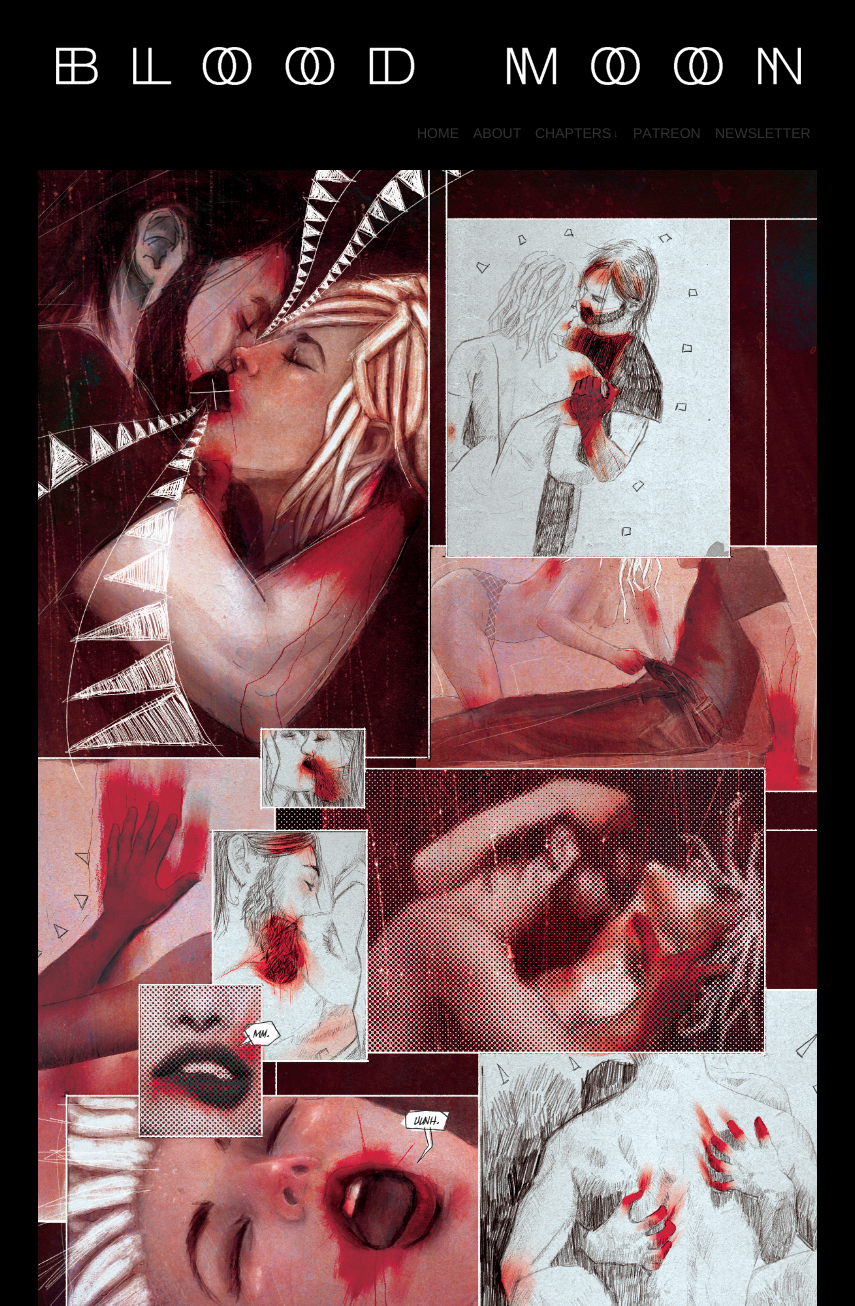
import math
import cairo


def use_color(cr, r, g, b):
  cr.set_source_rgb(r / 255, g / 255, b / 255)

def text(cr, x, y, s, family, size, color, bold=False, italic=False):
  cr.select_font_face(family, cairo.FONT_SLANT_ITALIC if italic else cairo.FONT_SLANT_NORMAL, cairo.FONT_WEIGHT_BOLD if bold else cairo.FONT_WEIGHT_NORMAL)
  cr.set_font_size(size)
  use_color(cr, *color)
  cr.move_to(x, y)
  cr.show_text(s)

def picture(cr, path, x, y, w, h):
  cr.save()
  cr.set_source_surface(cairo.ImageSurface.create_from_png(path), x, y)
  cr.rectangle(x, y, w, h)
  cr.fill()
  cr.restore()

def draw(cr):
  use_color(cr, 0, 0, 0)
  cr.paint()
  picture(cr, "img_01.png", 56, 47, 745, 38)
  picture(cr, "img_02.png", 38, 170, 779, 1136)
  text(cr, 417, 138, "HOME", "Liberation Sans", 14, (51, 51, 51))
  text(cr, 473, 138, "ABOUT", "Liberation Sans", 14, (51, 51, 51))
  text(cr, 535, 138, "CHAPTERS", "Liberation Sans", 14, (51, 51, 51))
  text(cr, 613, 137, "↓", "Liberation Sans", 11, (51, 51, 51))
  text(cr, 633, 138, "PATREON", "Liberation Sans", 14, (51, 51, 51))
  text(cr, 715, 138, "NEWSLETTER", "Liberation Sans", 14, (51, 51, 51))


surface = cairo.ImageSurface(cairo.FORMAT_RGB24, 855, 1306)
cr = cairo.Context(surface)
options = cairo.FontOptions()
options.set_hint_metrics(cairo.HINT_METRICS_OFF)
options.set_hint_style(cairo.HINT_STYLE_NONE)
cr.set_font_options(options)
cr.set_miter_limit(4)
draw(cr)
surface.write_to_png("out.png")
